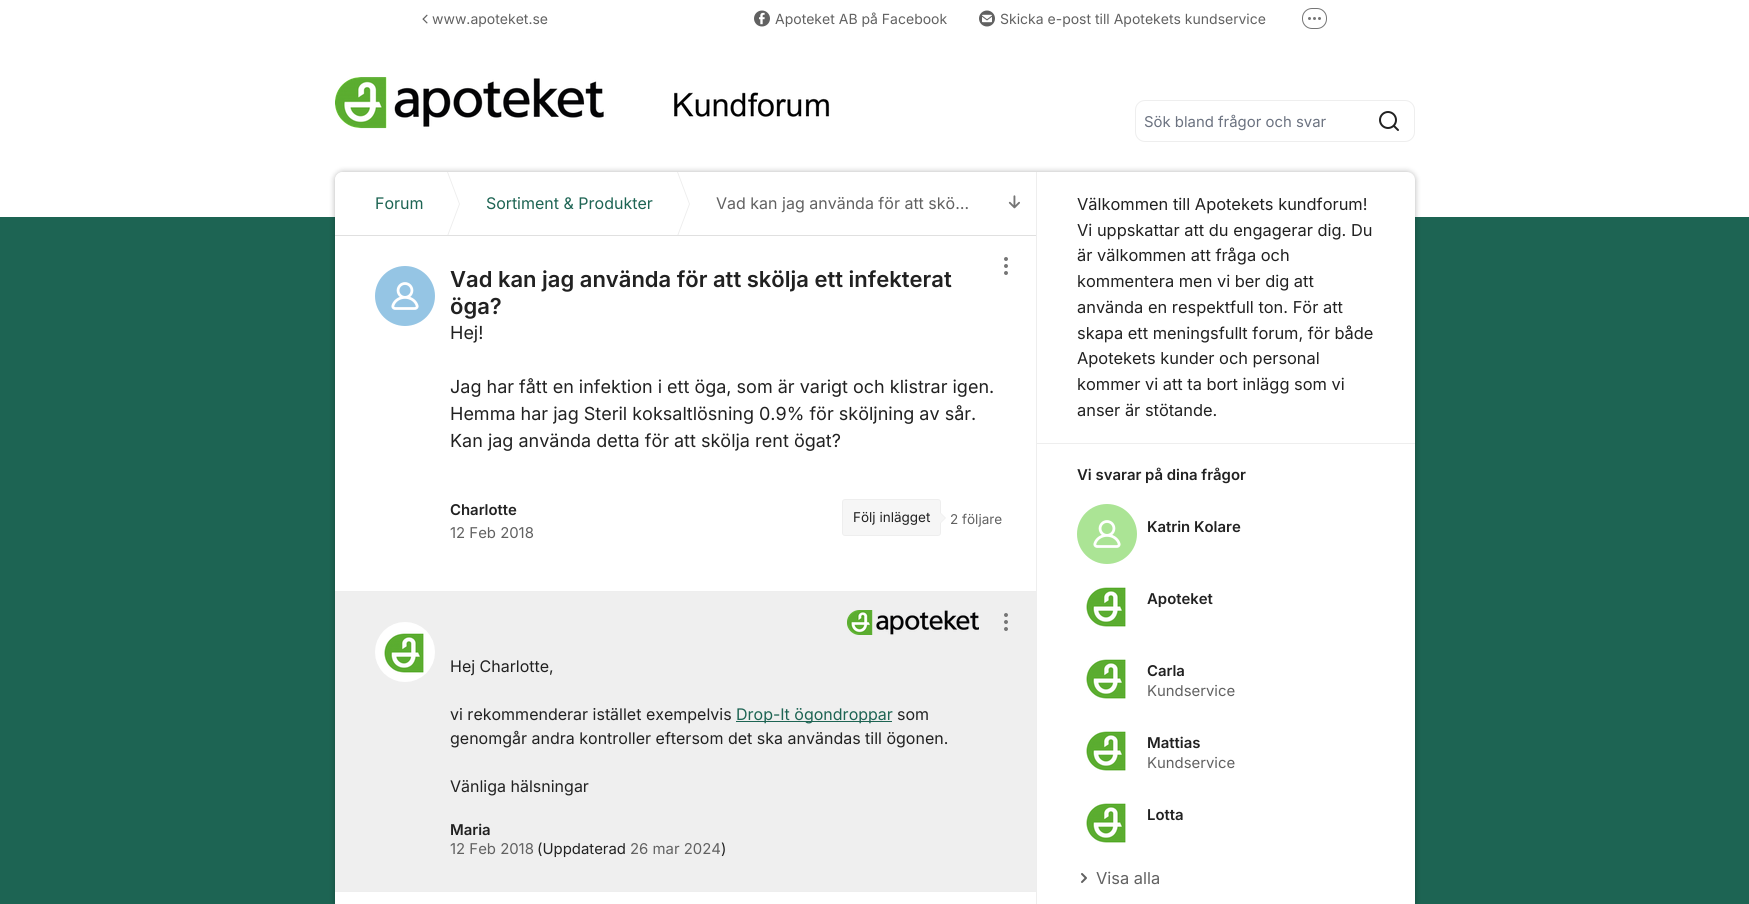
import math
import cairo


def use_color(cr, r, g, b):
  cr.set_source_rgb(r / 255, g / 255, b / 255)

def text(cr, x, y, s, family, size, color, bold=False, italic=False):
  cr.select_font_face(family, cairo.FONT_SLANT_ITALIC if italic else cairo.FONT_SLANT_NORMAL, cairo.FONT_WEIGHT_BOLD if bold else cairo.FONT_WEIGHT_NORMAL)
  cr.set_font_size(size)
  use_color(cr, *color)
  cr.move_to(x, y)
  cr.show_text(s)

def box(cr, x, y, w, h, *color):
  use_color(cr, *color)
  cr.rectangle(x, y, w, h)
  cr.fill()

def round_rect(cr, x, y, w, h, r):
  cr.new_sub_path()
  for i, (u, v) in enumerate([(x + w - r, y + h - r), (x + r, y + h - r), (x + r, y + r), (x + w - r, y + r)]):
    cr.arc(u, v, r, i * math.pi / 2, (i + 1) * math.pi / 2)
  cr.close_path()

def shadow(cr, x, y, w, h, r, blur, alpha):
  cr.push_group_with_content(cairo.CONTENT_ALPHA)
  cr.set_operator(cairo.OPERATOR_SOURCE)
  for i in range(15, -16, -2):
    e = blur * i / 6
    if min(w, h) + 2 * e > 0:
      cr.set_source_rgba(0, 0, 0, alpha * math.erfc((i - 1) / 8.5) / 2)
      round_rect(cr, x - e, y - e, w + 2 * e, h + 2 * e, max(0, min(r + e + blur * .6, min(w, h) / 2 + e)))
      cr.fill()
  cr.mask(cr.pop_group())

def picture(cr, path, x, y, w, h):
  cr.save()
  cr.set_source_surface(cairo.ImageSurface.create_from_png(path), x, y)
  cr.rectangle(x, y, w, h)
  cr.fill()
  cr.restore()

def draw(cr):
  use_color(cr, 255, 255, 255)
  cr.paint()
  picture(cr, "img_01.png", 422, 14, 6, 10)
  picture(cr, "img_02.png", 754, 10, 16, 17)
  picture(cr, "img_03.png", 979, 10, 16, 17)
  round_rect(cr, 1302.5, 8.5, 24, 20, 9.5)
  use_color(cr, 117, 117, 117)
  cr.set_line_width(1)
  cr.stroke()
  cr.arc(1309.5, 18.5, 1.5, 0, 2 * math.pi)
  cr.fill()
  cr.arc(1314.5, 18.5, 1.5, 0, 2 * math.pi)
  cr.fill()
  cr.arc(1319.5, 18.5, 1.5, 0, 2 * math.pi)
  cr.fill()
  picture(cr, "img_04.png", 335, 77, 495, 52)
  round_rect(cr, 1135.5, 100.5, 279, 41, 9.5)
  use_color(cr, 238, 238, 238)
  cr.stroke()
  picture(cr, "img_05.png", 1379, 111, 20, 20)
  box(cr, 0, 217, 1749, 687, 29, 100, 83)
  use_color(cr, 0, 0, 0)
  shadow(cr, 335, 172, 1080, 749, 8, 3, 0.3)
  use_color(cr, 255, 255, 255)
  cr.new_path()
  cr.move_to(343, 172)
  cr.line_to(1407, 172)
  cr.curve_to(1411.5, 172, 1415, 175.5, 1415, 180)
  cr.line_to(1415, 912)
  cr.line_to(335, 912)
  cr.line_to(335, 180)
  cr.curve_to(335, 175.5, 338.5, 172, 343, 172)
  cr.close_path()
  cr.fill()
  round_rect(cr, 335, 172, 702, 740, 8)
  cr.fill()
  box(cr, 335, 235, 702, 1, 224, 224, 224)
  cr.save()
  cr.rectangle(335, 172, 702, 63)
  cr.clip()
  use_color(cr, 238, 238, 238)
  cr.new_path()
  cr.move_to(445, 244)
  cr.line_to(445, 164)
  cr.line_to(460, 204)
  cr.close_path()
  cr.fill()
  use_color(cr, 255, 255, 255)
  cr.new_path()
  cr.move_to(444, 244)
  cr.line_to(444, 164)
  cr.line_to(459, 204)
  cr.close_path()
  cr.fill()
  use_color(cr, 238, 238, 238)
  cr.new_path()
  cr.move_to(675, 244)
  cr.line_to(675, 164)
  cr.line_to(690, 204)
  cr.close_path()
  cr.fill()
  use_color(cr, 255, 255, 255)
  cr.new_path()
  cr.move_to(674, 244)
  cr.line_to(674, 164)
  cr.line_to(689, 204)
  cr.close_path()
  cr.fill()
  cr.restore()
  picture(cr, "img_06.png", 1008, 195, 12, 14)
  picture(cr, "img_07.png", 1004, 257, 4, 18)
  use_color(cr, 149, 197, 228)
  cr.arc(405, 296, 30, 0, 2 * math.pi)
  cr.fill()
  picture(cr, "img_08.png", 391, 282, 28, 28)
  use_color(cr, 246, 246, 246)
  round_rect(cr, 842.5, 499.5, 98, 36, 2.5)
  cr.fill_preserve()
  use_color(cr, 238, 238, 238)
  cr.stroke()
  cr.new_path()
  cr.move_to(940, 524)
  cr.line_to(940, 512)
  cr.line_to(946, 518)
  cr.close_path()
  cr.fill()
  use_color(cr, 246, 246, 246)
  cr.new_path()
  cr.move_to(939, 524)
  cr.line_to(939, 512)
  cr.line_to(945, 518)
  cr.close_path()
  cr.fill()
  box(cr, 335, 592, 701, 299, 239, 239, 239)
  box(cr, 335, 591, 702, 1, 238, 238, 238)
  picture(cr, "img_09.png", 847, 610, 132, 25)
  box(cr, 736, 721, 156, 1, 29, 100, 83)
  picture(cr, "img_10.png", 375, 622, 60, 60)
  picture(cr, "img_11.png", 1004, 613, 4, 18)
  box(cr, 335, 891, 702, 1, 238, 238, 238)
  box(cr, 1036, 172, 1, 732, 238, 238, 238)
  box(cr, 1037, 443, 378, 1, 238, 238, 238)
  use_color(cr, 171, 228, 149)
  cr.arc(1107, 534, 30, 0, 2 * math.pi)
  cr.fill()
  picture(cr, "img_12.png", 1093, 520, 28, 28)
  picture(cr, "img_13.png", 1086, 587, 40, 40)
  picture(cr, "img_13.png", 1086, 659, 40, 40)
  picture(cr, "img_13.png", 1086, 731, 40, 40)
  picture(cr, "img_13.png", 1086, 803, 40, 40)
  picture(cr, "img_14.png", 1081, 873, 6, 10)
  text(cr, 432, 24, "www.apoteket.se", "Inter", 14, (97, 97, 97))
  text(cr, 775, 24, "Apoteket AB på Facebook", "Inter", 14, (97, 97, 97))
  text(cr, 1000, 24, "Skicka e-post till Apotekets kundservice", "Inter", 14, (97, 97, 97))
  text(cr, 1144, 127, "Sök bland frågor och svar", "Inter", 14.9, (107, 114, 128))
  text(cr, 375, 209, "Forum", "Inter", 16, (29, 100, 83))
  text(cr, 486, 209, "Sortiment & Produkter", "Inter", 16, (29, 100, 83))
  text(cr, 716, 209, "Vad kan jag använda för att skö…", "Inter", 16, (97, 97, 97))
  text(cr, 450, 287, "Vad kan jag använda för att skölja ett infekterat", "Inter SemiBold", 22, (33, 33, 33))
  text(cr, 450, 314, "öga?", "Inter SemiBold", 22, (33, 33, 33))
  text(cr, 450, 339, "Hej!", "Inter", 18, (33, 33, 33))
  text(cr, 450, 393, "Jag har fått en infektion i ett öga, som är varigt och klistrar igen.", "Inter", 18, (33, 33, 33))
  text(cr, 450, 420, "Hemma har jag Steril koksaltlösning 0.9% för sköljning av sår.", "Inter", 18, (33, 33, 33))
  text(cr, 450, 447, "Kan jag använda detta för att skölja rent ögat?", "Inter", 18, (33, 33, 33))
  text(cr, 450, 515, "Charlotte", "Inter SemiBold", 14.9, (33, 33, 33))
  text(cr, 450, 538, "12 Feb 2018", "Inter", 14.9, (97, 97, 97))
  text(cr, 853, 522, "Följ inlägget", "Inter", 13.5, (33, 33, 33))
  text(cr, 950, 524, "2 följare", "Inter", 13.5, (97, 97, 97))
  text(cr, 450, 672, "Hej Charlotte,", "Inter", 16, (33, 33, 33))
  text(cr, 450, 720, "vi rekommenderar istället exempelvis", "Inter", 16, (33, 33, 33))
  text(cr, 736, 720, "Drop-It ögondroppar", "Inter", 16, (29, 100, 83))
  text(cr, 897, 720, "som", "Inter", 16, (33, 33, 33))
  text(cr, 450, 744, "genomgår andra kontroller eftersom det ska användas till ögonen.", "Inter", 16, (33, 33, 33))
  text(cr, 450, 792, "Vänliga hälsningar", "Inter", 16, (33, 33, 33))
  text(cr, 450, 835, "Maria", "Inter SemiBold", 14.9, (33, 33, 33))
  text(cr, 450, 854, "12 Feb 2018", "Inter", 14.9, (97, 97, 97))
  text(cr, 537, 854, "(Uppdaterad", "Inter", 14.9, (33, 33, 33))
  text(cr, 630, 854, "26 mar 2024", "Inter", 14.9, (97, 97, 97))
  text(cr, 721, 854, ")", "Inter", 14.9, (33, 33, 33))
  text(cr, 1077, 210, "Välkommen till Apotekets kundforum!", "Inter", 16.4, (33, 33, 33))
  text(cr, 1077, 236, "Vi uppskattar att du engagerar dig. Du", "Inter", 16.4, (33, 33, 33))
  text(cr, 1077, 261, "är välkommen att fråga och", "Inter", 16.4, (33, 33, 33))
  text(cr, 1077, 287, "kommentera men vi ber dig att", "Inter", 16.4, (33, 33, 33))
  text(cr, 1077, 313, "använda en respektfull ton. För att", "Inter", 16.4, (33, 33, 33))
  text(cr, 1077, 339, "skapa ett meningsfullt forum, för både", "Inter", 16.4, (33, 33, 33))
  text(cr, 1077, 364, "Apotekets kunder och personal", "Inter", 16.4, (33, 33, 33))
  text(cr, 1077, 390, "kommer vi att ta bort inlägg som vi", "Inter", 16.4, (33, 33, 33))
  text(cr, 1077, 416, "anser är stötande.", "Inter", 16.4, (33, 33, 33))
  text(cr, 1077, 480, "Vi svarar på dina frågor", "Inter SemiBold", 14.9, (33, 33, 33))
  text(cr, 1147, 532, "Katrin Kolare", "Inter SemiBold", 14.9, (33, 33, 33))
  text(cr, 1147, 604, "Apoteket", "Inter SemiBold", 14.9, (33, 33, 33))
  text(cr, 1147, 676, "Carla", "Inter SemiBold", 14.9, (33, 33, 33))
  text(cr, 1147, 696, "Kundservice", "Inter", 14.9, (97, 97, 97))
  text(cr, 1147, 748, "Mattias", "Inter SemiBold", 14.9, (33, 33, 33))
  text(cr, 1147, 768, "Kundservice", "Inter", 14.9, (97, 97, 97))
  text(cr, 1147, 820, "Lotta", "Inter SemiBold", 14.9, (33, 33, 33))
  text(cr, 1096, 884, "Visa alla", "Inter", 16.4, (97, 97, 97))


surface = cairo.ImageSurface(cairo.FORMAT_RGB24, 1749, 904)
cr = cairo.Context(surface)
options = cairo.FontOptions()
options.set_hint_metrics(cairo.HINT_METRICS_OFF)
options.set_hint_style(cairo.HINT_STYLE_NONE)
cr.set_font_options(options)
cr.set_miter_limit(4)
draw(cr)
surface.write_to_png("out.png")
